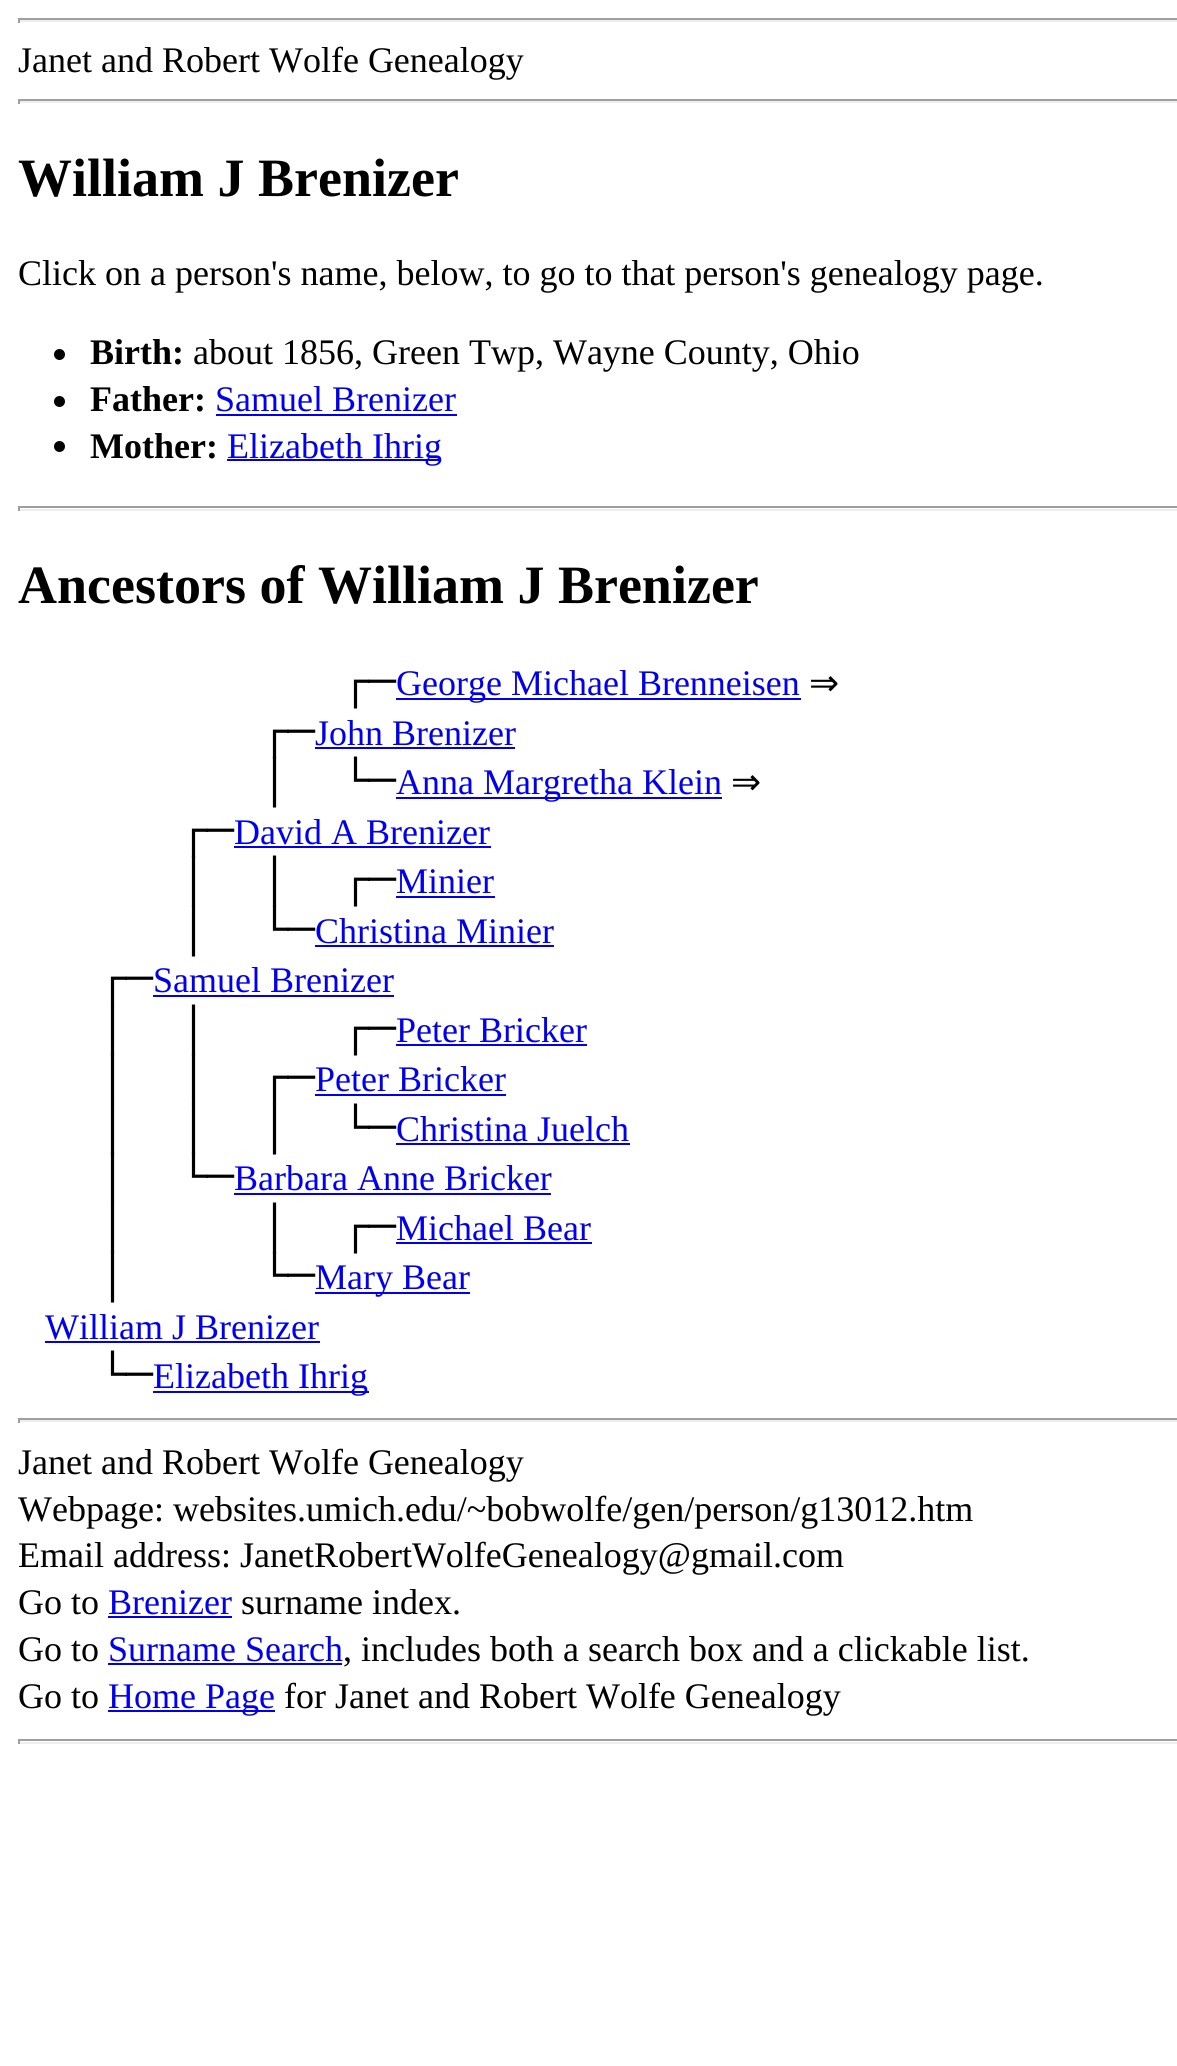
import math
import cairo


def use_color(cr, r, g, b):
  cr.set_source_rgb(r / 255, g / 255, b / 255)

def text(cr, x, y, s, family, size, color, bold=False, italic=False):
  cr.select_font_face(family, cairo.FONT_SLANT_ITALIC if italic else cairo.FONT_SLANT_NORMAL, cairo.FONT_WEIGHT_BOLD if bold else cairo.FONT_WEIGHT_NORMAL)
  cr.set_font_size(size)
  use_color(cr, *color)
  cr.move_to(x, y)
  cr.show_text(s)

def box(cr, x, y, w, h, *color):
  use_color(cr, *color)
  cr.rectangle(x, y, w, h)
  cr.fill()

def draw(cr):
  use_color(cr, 255, 255, 255)
  cr.paint()
  box(cr, 18, 18, 1159, 2, 159, 159, 159)
  box(cr, 18, 20, 1159, 2, 238, 238, 238)
  box(cr, 18, 18, 2, 5, 159, 159, 159)
  box(cr, 18, 99, 1159, 2, 159, 159, 159)
  box(cr, 18, 101, 1159, 2, 238, 238, 238)
  box(cr, 18, 99, 2, 5, 159, 159, 159)
  use_color(cr, 0, 0, 0)
  cr.arc(59.5, 354.5, 5.5, 0, 2 * math.pi)
  cr.fill()
  cr.arc(59.5, 401.5, 5.5, 0, 2 * math.pi)
  cr.fill()
  box(cr, 216, 414, 241, 2, 0, 0, 238)
  use_color(cr, 0, 0, 0)
  cr.arc(59.5, 446.5, 5.5, 0, 2 * math.pi)
  cr.fill()
  box(cr, 227, 459, 214, 2, 0, 0, 238)
  box(cr, 18, 506, 1159, 2, 159, 159, 159)
  box(cr, 18, 509, 1159, 2, 238, 238, 238)
  box(cr, 18, 506, 2, 5, 159, 159, 159)
  box(cr, 45, 1341, 275, 2, 0, 0, 238)
  box(cr, 153, 1391, 216, 2, 0, 0, 238)
  box(cr, 18, 1418, 1159, 2, 159, 159, 159)
  box(cr, 18, 1420, 1159, 2, 238, 238, 238)
  box(cr, 18, 1418, 2, 5, 159, 159, 159)
  box(cr, 108, 1616, 124, 2, 0, 0, 238)
  box(cr, 108, 1663, 234, 2, 0, 0, 238)
  box(cr, 108, 1710, 167, 2, 0, 0, 238)
  box(cr, 18, 1739, 1159, 2, 159, 159, 159)
  box(cr, 18, 1742, 1159, 2, 238, 238, 238)
  box(cr, 18, 1739, 2, 5, 159, 159, 159)
  text(cr, 18, 72, "Janet and Robert Wolfe Genealogy", "Liberation Serif", 36, (0, 0, 0))
  text(cr, 18, 196, "William J Brenizer", "Liberation Serif", 54, (0, 0, 0), bold=True)
  text(cr, 18, 285, "Click on a person's name, below, to go to that person's genealogy page.", "Liberation Serif", 36, (0, 0, 0))
  text(cr, 90, 364, "Birth:", "Liberation Serif", 36, (0, 0, 0), bold=True)
  text(cr, 193, 364, "about 1856, Green Twp, Wayne County, Ohio", "Liberation Serif", 36, (0, 0, 0))
  text(cr, 90, 411, "Father:", "Liberation Serif", 36, (0, 0, 0), bold=True)
  text(cr, 215, 411, "Samuel Brenizer", "Liberation Serif", 36, (0, 0, 238))
  text(cr, 90, 458, "Mother:", "Liberation Serif", 36, (0, 0, 0), bold=True)
  text(cr, 227, 458, "Elizabeth Ihrig", "Liberation Serif", 36, (0, 0, 238))
  text(cr, 18, 603, "Ancestors of William J Brenizer", "Liberation Serif", 54, (0, 0, 0), bold=True)
  text(cr, 342, 695, "┌─", "Liberation Mono", 45, (0, 0, 0))
  box(cr, 396, 698, 405, 2, 0, 0, 238)
  text(cr, 396, 695, "George Michael Brenneisen", "Liberation Serif", 36, (0, 0, 238))
  text(cr, 809, 695, "⇒", "DejaVu Sans", 36, (0, 0, 0))
  text(cr, 261, 745, "┌─", "Liberation Mono", 45, (0, 0, 0))
  text(cr, 315, 745, "John Brenizer", "Liberation Serif", 36, (0, 0, 238))
  box(cr, 315, 747, 200, 2, 0, 0, 238)
  text(cr, 261, 794, "│  └─", "Liberation Mono", 45, (0, 0, 0))
  box(cr, 396, 797, 326, 2, 0, 0, 238)
  text(cr, 396, 794, "Anna Margretha Klein", "Liberation Serif", 36, (0, 0, 238))
  text(cr, 731, 794, "⇒", "DejaVu Sans", 36, (0, 0, 0))
  text(cr, 180, 844, "┌─", "Liberation Mono", 45, (0, 0, 0))
  text(cr, 234, 844, "David A Brenizer", "Liberation Serif", 36, (0, 0, 238))
  box(cr, 234, 846, 257, 2, 0, 0, 238)
  text(cr, 180, 893, "│  │  ┌─", "Liberation Mono", 45, (0, 0, 0))
  text(cr, 396, 893, "Minier", "Liberation Serif", 36, (0, 0, 238))
  box(cr, 396, 896, 99, 2, 0, 0, 238)
  text(cr, 180, 943, "│  └─", "Liberation Mono", 45, (0, 0, 0))
  text(cr, 315, 943, "Christina Minier", "Liberation Serif", 36, (0, 0, 238))
  box(cr, 315, 945, 239, 2, 0, 0, 238)
  text(cr, 99, 992, "┌─", "Liberation Mono", 45, (0, 0, 0))
  text(cr, 153, 992, "Samuel Brenizer", "Liberation Serif", 36, (0, 0, 238))
  box(cr, 153, 995, 241, 2, 0, 0, 238)
  text(cr, 99, 1042, "│  │     ┌─", "Liberation Mono", 45, (0, 0, 0))
  text(cr, 396, 1042, "Peter Bricker", "Liberation Serif", 36, (0, 0, 238))
  box(cr, 396, 1044, 191, 2, 0, 0, 238)
  text(cr, 99, 1091, "│  │  ┌─", "Liberation Mono", 45, (0, 0, 0))
  text(cr, 315, 1091, "Peter Bricker", "Liberation Serif", 36, (0, 0, 238))
  box(cr, 315, 1094, 191, 2, 0, 0, 238)
  text(cr, 99, 1141, "│  │  │  └─", "Liberation Mono", 45, (0, 0, 0))
  text(cr, 396, 1141, "Christina Juelch", "Liberation Serif", 36, (0, 0, 238))
  box(cr, 396, 1143, 234, 2, 0, 0, 238)
  text(cr, 99, 1190, "│  └─", "Liberation Mono", 45, (0, 0, 0))
  text(cr, 234, 1190, "Barbara Anne Bricker", "Liberation Serif", 36, (0, 0, 238))
  box(cr, 234, 1193, 317, 2, 0, 0, 238)
  text(cr, 99, 1240, "│     │  ┌─", "Liberation Mono", 45, (0, 0, 0))
  text(cr, 396, 1240, "Michael Bear", "Liberation Serif", 36, (0, 0, 238))
  box(cr, 396, 1242, 196, 2, 0, 0, 238)
  text(cr, 99, 1289, "│     └─", "Liberation Mono", 45, (0, 0, 0))
  box(cr, 315, 1292, 155, 2, 0, 0, 238)
  text(cr, 315, 1289, "Mary Bear", "Liberation Serif", 36, (0, 0, 238))
  text(cr, 45, 1339, "William J Brenizer", "Liberation Serif", 36, (0, 0, 238))
  text(cr, 99, 1388, "└─", "Liberation Mono", 45, (0, 0, 0))
  text(cr, 153, 1388, "Elizabeth Ihrig", "Liberation Serif", 36, (0, 0, 238))
  text(cr, 18, 1474, "Janet and Robert Wolfe Genealogy", "Liberation Serif", 36, (0, 0, 0))
  text(cr, 18, 1521, "Webpage: websites.umich.edu/~bobwolfe/gen/person/g13012.htm", "Liberation Serif", 36, (0, 0, 0))
  text(cr, 18, 1567, "Email address: JanetRobertWolfeGenealogy@gmail.com", "Liberation Serif", 36, (0, 0, 0))
  text(cr, 18, 1614, "Go to", "Liberation Serif", 36, (0, 0, 0))
  text(cr, 108, 1614, "Brenizer", "Liberation Serif", 36, (0, 0, 238))
  text(cr, 241, 1614, "surname index.", "Liberation Serif", 36, (0, 0, 0))
  text(cr, 18, 1661, "Go to", "Liberation Serif", 36, (0, 0, 0))
  text(cr, 108, 1661, "Surname Search", "Liberation Serif", 36, (0, 0, 238))
  text(cr, 343, 1661, ", includes both a search box and a clickable list.", "Liberation Serif", 36, (0, 0, 0))
  text(cr, 18, 1708, "Go to", "Liberation Serif", 36, (0, 0, 0))
  text(cr, 108, 1708, "Home Page", "Liberation Serif", 36, (0, 0, 238))
  text(cr, 284, 1708, "for Janet and Robert Wolfe Genealogy", "Liberation Serif", 36, (0, 0, 0))


surface = cairo.ImageSurface(cairo.FORMAT_RGB24, 1177, 2066)
cr = cairo.Context(surface)
options = cairo.FontOptions()
options.set_hint_metrics(cairo.HINT_METRICS_OFF)
options.set_hint_style(cairo.HINT_STYLE_NONE)
cr.set_font_options(options)
cr.set_miter_limit(4)
draw(cr)
surface.write_to_png("out.png")
